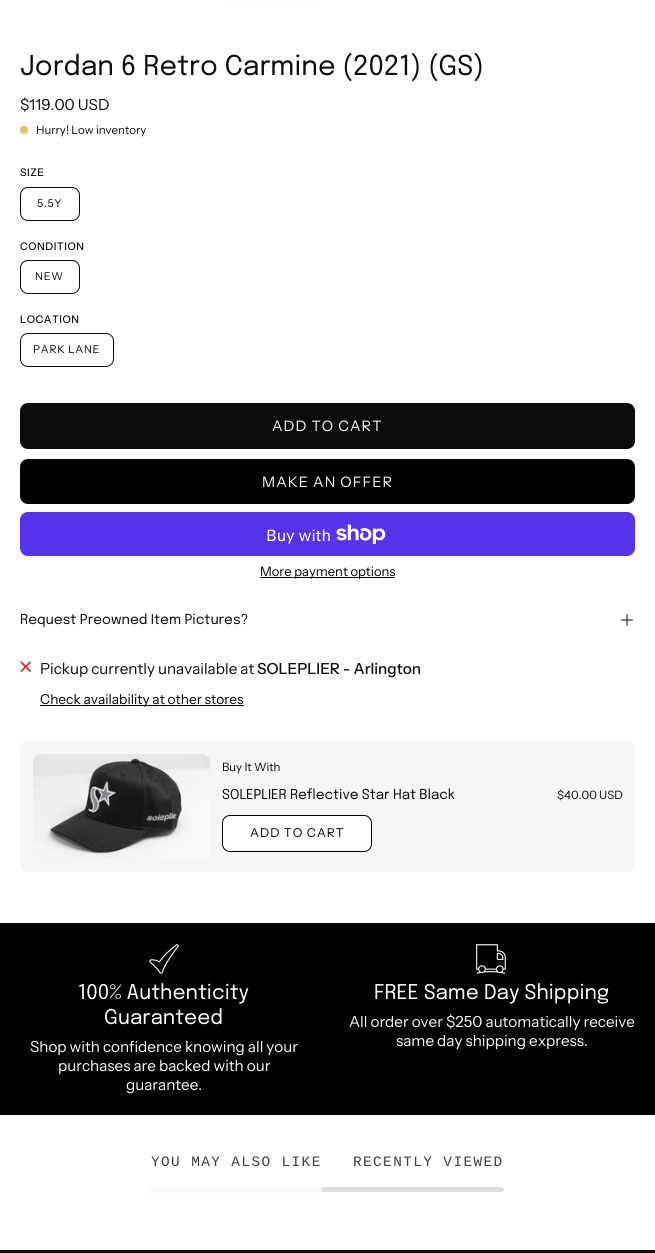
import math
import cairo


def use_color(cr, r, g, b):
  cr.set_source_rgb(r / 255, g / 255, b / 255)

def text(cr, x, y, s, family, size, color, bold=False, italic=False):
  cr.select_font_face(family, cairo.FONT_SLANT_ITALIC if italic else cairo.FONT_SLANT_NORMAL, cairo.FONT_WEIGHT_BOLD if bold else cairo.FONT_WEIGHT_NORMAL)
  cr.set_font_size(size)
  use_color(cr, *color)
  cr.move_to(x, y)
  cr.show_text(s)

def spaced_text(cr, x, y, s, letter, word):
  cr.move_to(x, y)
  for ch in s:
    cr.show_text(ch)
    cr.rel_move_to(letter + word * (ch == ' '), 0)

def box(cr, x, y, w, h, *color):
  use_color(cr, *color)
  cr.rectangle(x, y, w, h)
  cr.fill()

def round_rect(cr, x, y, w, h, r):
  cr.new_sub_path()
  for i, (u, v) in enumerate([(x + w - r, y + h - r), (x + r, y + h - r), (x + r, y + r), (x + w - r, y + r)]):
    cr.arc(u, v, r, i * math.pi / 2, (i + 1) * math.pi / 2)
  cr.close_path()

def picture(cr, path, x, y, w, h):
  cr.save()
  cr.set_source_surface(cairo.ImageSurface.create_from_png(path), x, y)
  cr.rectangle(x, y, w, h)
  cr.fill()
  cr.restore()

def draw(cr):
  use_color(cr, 255, 255, 255)
  cr.paint()
  box(cr, 227, 0, 94, 1, 251, 252, 252)
  use_color(cr, 236, 189, 94)
  cr.arc(24, 130, 4, 0, 2 * math.pi)
  cr.fill()
  round_rect(cr, 20.5, 187.5, 59, 33, 7.5)
  use_color(cr, 11, 11, 11)
  cr.set_line_width(1)
  cr.stroke()
  round_rect(cr, 20.5, 260.5, 59, 33, 7.5)
  cr.stroke()
  round_rect(cr, 20.5, 333.5, 93, 33, 7.5)
  cr.stroke()
  round_rect(cr, 20, 403, 615, 46, 8)
  cr.fill()
  use_color(cr, 0, 0, 0)
  round_rect(cr, 20, 459, 615, 45, 8)
  cr.fill()
  use_color(cr, 84, 51, 235)
  round_rect(cr, 20, 512, 615, 44, 8)
  cr.fill()
  picture(cr, "img_01.png", 336, 524, 50, 20)
  box(cr, 260, 577, 135, 1, 0, 0, 0)
  cr.new_path()
  cr.move_to(621.5, 620)
  cr.line_to(632.5, 620)
  cr.move_to(627, 614.5)
  cr.line_to(627, 625.5)
  use_color(cr, 11, 11, 11)
  cr.set_line_cap(cairo.LINE_CAP_ROUND)
  cr.set_line_join(cairo.LINE_JOIN_ROUND)
  cr.stroke()
  picture(cr, "img_02.png", 20, 661, 11, 11)
  box(cr, 40, 705, 204, 1, 0, 0, 0)
  use_color(cr, 247, 246, 244)
  round_rect(cr, 20, 741, 615, 131, 8)
  cr.fill()
  picture(cr, "img_03.png", 33, 754, 177, 105)
  use_color(cr, 255, 255, 255)
  round_rect(cr, 222.5, 815.5, 149, 36, 7.5)
  cr.fill_preserve()
  use_color(cr, 0, 0, 0)
  cr.set_line_cap(cairo.LINE_CAP_BUTT)
  cr.set_line_join(cairo.LINE_JOIN_MITER)
  cr.stroke()
  box(cr, 0, 923, 655, 192, 0, 0, 0)
  picture(cr, "img_04.png", 149, 944, 30, 30)
  picture(cr, "img_05.png", 476, 944, 30, 30)
  use_color(cr, 223, 222, 222)
  round_rect(cr, 151, 1187, 353, 5, 2.5)
  cr.fill()
  use_color(cr, 255, 247, 242)
  cr.new_path()
  cr.move_to(153.5, 1187)
  cr.line_to(322, 1187)
  cr.line_to(322, 1192)
  cr.line_to(153.5, 1192)
  cr.curve_to(152, 1192, 151, 1191, 151, 1189.5)
  cr.curve_to(151, 1188, 152, 1187, 153.5, 1187)
  cr.close_path()
  cr.fill()
  box(cr, 0, 1250, 655, 3, 11, 11, 11)
  text(cr, 20, 75, "Jordan 6 Retro Carmine (2021) (GS)", "Epilogue", 27.25, (11, 11, 11))
  text(cr, 20, 110, "$119.00 USD", "Instrument Sans", 15.25, (11, 11, 11))
  text(cr, 36, 134, "Hurry! Low inventory", "Instrument Sans", 11.5, (11, 11, 11))
  cr.select_font_face("Instrument Sans Medium")
  cr.set_font_size(10.5)
  spaced_text(cr, 20, 176, "SIZE", 0.5, 0)
  cr.select_font_face("Instrument Sans")
  cr.set_font_size(10.75)
  spaced_text(cr, 37, 207, "5.5Y", 0.75, 0)
  cr.select_font_face("Instrument Sans Medium")
  cr.set_font_size(10.5)
  spaced_text(cr, 20, 250, "CONDITION", 0.5, 0)
  cr.select_font_face("Instrument Sans")
  cr.set_font_size(10.75)
  spaced_text(cr, 35, 280, "NEW", 0.75, 0)
  cr.select_font_face("Instrument Sans Medium")
  cr.set_font_size(10.5)
  spaced_text(cr, 20, 323, "LOCATION", 0.5, 0)
  cr.select_font_face("Instrument Sans")
  cr.set_font_size(10.75)
  spaced_text(cr, 33, 353, "PARK LANE", 0.75, 0)
  cr.set_font_size(14.4)
  use_color(cr, 255, 255, 255)
  spaced_text(cr, 272, 431, "ADD TO CART", 1.1, 0)
  spaced_text(cr, 262, 487, "MAKE AN OFFER", 1.1, 0)
  text(cr, 266, 541, "Buy with", "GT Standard", 16, (255, 255, 255))
  text(cr, 260, 576, "More payment options", "Instrument Sans", 13, (0, 0, 0))
  text(cr, 20, 624, "Request Preowned Item Pictures?", "Epilogue", 13.7, (11, 11, 11))
  text(cr, 40, 674, "Pickup currently unavailable at", "Instrument Sans", 15.25, (11, 11, 11))
  text(cr, 257, 674, "SOLEPLIER - Arlington", "Instrument Sans Medium", 15.25, (11, 11, 11))
  text(cr, 40, 704, "Check availability at other stores", "Instrument Sans", 13.7, (0, 0, 0))
  text(cr, 222, 771, "Buy It With", "Instrument Sans", 11.5, (11, 11, 11))
  text(cr, 222, 799, "SOLEPLIER Reflective Star Hat Black", "Epilogue", 13.6, (11, 11, 11))
  text(cr, 557, 799, "$40.00 USD", "Instrument Sans", 11.5, (11, 11, 11))
  cr.set_font_size(12.25)
  use_color(cr, 0, 0, 0)
  spaced_text(cr, 250, 837, "ADD TO CART", 1, 0)
  text(cr, 78, 999, "100% Authenticity", "Epilogue", 20.25, (255, 255, 255))
  text(cr, 104, 1024, "Guaranteed", "Epilogue", 20.25, (255, 255, 255))
  text(cr, 30, 1052, "Shop with confidence knowing all your", "Instrument Sans", 15.25, (255, 255, 255))
  text(cr, 58, 1071, "purchases are backed with our", "Instrument Sans", 15.25, (255, 255, 255))
  text(cr, 126, 1090, "guarantee.", "Instrument Sans", 15.25, (255, 255, 255))
  text(cr, 374, 999, "FREE Same Day Shipping", "Epilogue", 20.25, (255, 255, 255))
  text(cr, 349, 1027, "All order over $250 automatically receive", "Instrument Sans", 15.25, (255, 255, 255))
  text(cr, 396, 1046, "same day shipping express.", "Instrument Sans", 15.25, (255, 255, 255))
  cr.select_font_face("Liberation Mono")
  cr.set_font_size(14.4)
  use_color(cr, 62, 62, 62)
  spaced_text(cr, 151, 1166, "YOU MAY ALSO LIKE", 1.4, 0)
  spaced_text(cr, 353, 1166, "RECENTLY VIEWED", 1.4, 0)


surface = cairo.ImageSurface(cairo.FORMAT_RGB24, 655, 1253)
cr = cairo.Context(surface)
options = cairo.FontOptions()
options.set_hint_metrics(cairo.HINT_METRICS_OFF)
options.set_hint_style(cairo.HINT_STYLE_NONE)
cr.set_font_options(options)
cr.set_miter_limit(4)
draw(cr)
surface.write_to_png("out.png")
